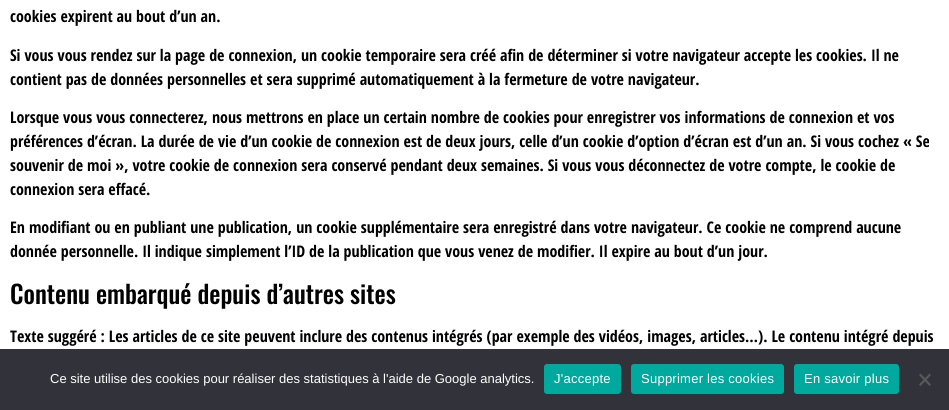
import math
import cairo


def use_color(cr, r, g, b):
  cr.set_source_rgb(r / 255, g / 255, b / 255)

def text(cr, x, y, s, family, size, color, bold=False, italic=False):
  cr.select_font_face(family, cairo.FONT_SLANT_ITALIC if italic else cairo.FONT_SLANT_NORMAL, cairo.FONT_WEIGHT_BOLD if bold else cairo.FONT_WEIGHT_NORMAL)
  cr.set_font_size(size)
  use_color(cr, *color)
  cr.move_to(x, y)
  cr.show_text(s)

def spaced_text(cr, x, y, s, letter, word):
  cr.move_to(x, y)
  for ch in s:
    cr.show_text(ch)
    cr.rel_move_to(letter + word * (ch == ' '), 0)

def box(cr, x, y, w, h, *color):
  use_color(cr, *color)
  cr.rectangle(x, y, w, h)
  cr.fill()

def round_rect(cr, x, y, w, h, r):
  cr.new_sub_path()
  for i, (u, v) in enumerate([(x + w - r, y + h - r), (x + r, y + h - r), (x + r, y + r), (x + w - r, y + r)]):
    cr.arc(u, v, r, i * math.pi / 2, (i + 1) * math.pi / 2)
  cr.close_path()

def draw(cr):
  use_color(cr, 255, 255, 255)
  cr.paint()
  box(cr, 0, 349, 949, 61, 50, 50, 58)
  use_color(cr, 0, 169, 157)
  round_rect(cr, 544, 364, 77, 30, 3)
  cr.fill()
  round_rect(cr, 631, 364, 153, 30, 3)
  cr.fill()
  round_rect(cr, 794, 364, 105, 30, 3)
  cr.fill()
  use_color(cr, 89, 89, 93)
  cr.new_path()
  cr.move_to(929.5, 373.5)
  cr.line_to(931, 375)
  cr.line_to(920.5, 386)
  cr.line_to(919, 384.5)
  cr.close_path()
  cr.fill()
  cr.new_path()
  cr.move_to(919, 375)
  cr.line_to(920.5, 373.5)
  cr.line_to(931, 384.5)
  cr.line_to(929.5, 386)
  cr.close_path()
  cr.fill()
  text(cr, 10, 22, "cookies expirent au bout d’un an.", "Open Sans Condensed", 16, (0, 0, 0), bold=True)
  text(cr, 10, 61, "Si vous vous rendez sur la page de connexion, un cookie temporaire sera créé afin de déterminer si votre navigateur accepte les cookies. Il ne", "Open Sans Condensed", 16, (0, 0, 0), bold=True)
  text(cr, 10, 85, "contient pas de données personnelles et sera supprimé automatiquement à la fermeture de votre navigateur.", "Open Sans Condensed", 16, (0, 0, 0), bold=True)
  text(cr, 10, 123, "Lorsque vous vous connecterez, nous mettrons en place un certain nombre de cookies pour enregistrer vos informations de connexion et vos", "Open Sans Condensed", 16, (0, 0, 0), bold=True)
  text(cr, 10, 147, "préférences d’écran. La durée de vie d’un cookie de connexion est de deux jours, celle d’un cookie d’option d’écran est d’un an. Si vous cochez « Se", "Open Sans Condensed", 16, (0, 0, 0), bold=True)
  text(cr, 10, 171, "souvenir de moi », votre cookie de connexion sera conservé pendant deux semaines. Si vous vous déconnectez de votre compte, le cookie de", "Open Sans Condensed", 16, (0, 0, 0), bold=True)
  text(cr, 10, 195, "connexion sera effacé.", "Open Sans Condensed", 16, (0, 0, 0), bold=True)
  text(cr, 10, 233, "En modifiant ou en publiant une publication, un cookie supplémentaire sera enregistré dans votre navigateur. Ce cookie ne comprend aucune", "Open Sans Condensed", 16, (0, 0, 0), bold=True)
  text(cr, 10, 257, "donnée personnelle. Il indique simplement l’ID de la publication que vous venez de modifier. Il expire au bout d’un jour.", "Open Sans Condensed", 16, (0, 0, 0), bold=True)
  text(cr, 10, 304, "Contenu embarqué depuis d’autres sites", "Oswald Medium", 25, (0, 0, 0))
  text(cr, 10, 342, "Texte suggéré : Les articles de ce site peuvent inclure des contenus intégrés (par exemple des vidéos, images, articles…). Le contenu intégré depuis", "Open Sans Condensed", 16, (0, 0, 0), bold=True)
  text(cr, 50, 383, "Ce site utilise des cookies pour réaliser des statistiques à l'aide de Google analytics.", "Liberation Sans", 13, (255, 255, 255))
  spaced_text(cr, 554, 383, "J'accepte", 0.25, 0)
  spaced_text(cr, 641, 383, "Supprimer les cookies", 0.25, 0)
  spaced_text(cr, 804, 383, "En savoir plus", 0.25, 0)


surface = cairo.ImageSurface(cairo.FORMAT_RGB24, 949, 410)
cr = cairo.Context(surface)
options = cairo.FontOptions()
options.set_hint_metrics(cairo.HINT_METRICS_OFF)
options.set_hint_style(cairo.HINT_STYLE_NONE)
cr.set_font_options(options)
cr.set_miter_limit(4)
draw(cr)
surface.write_to_png("out.png")
